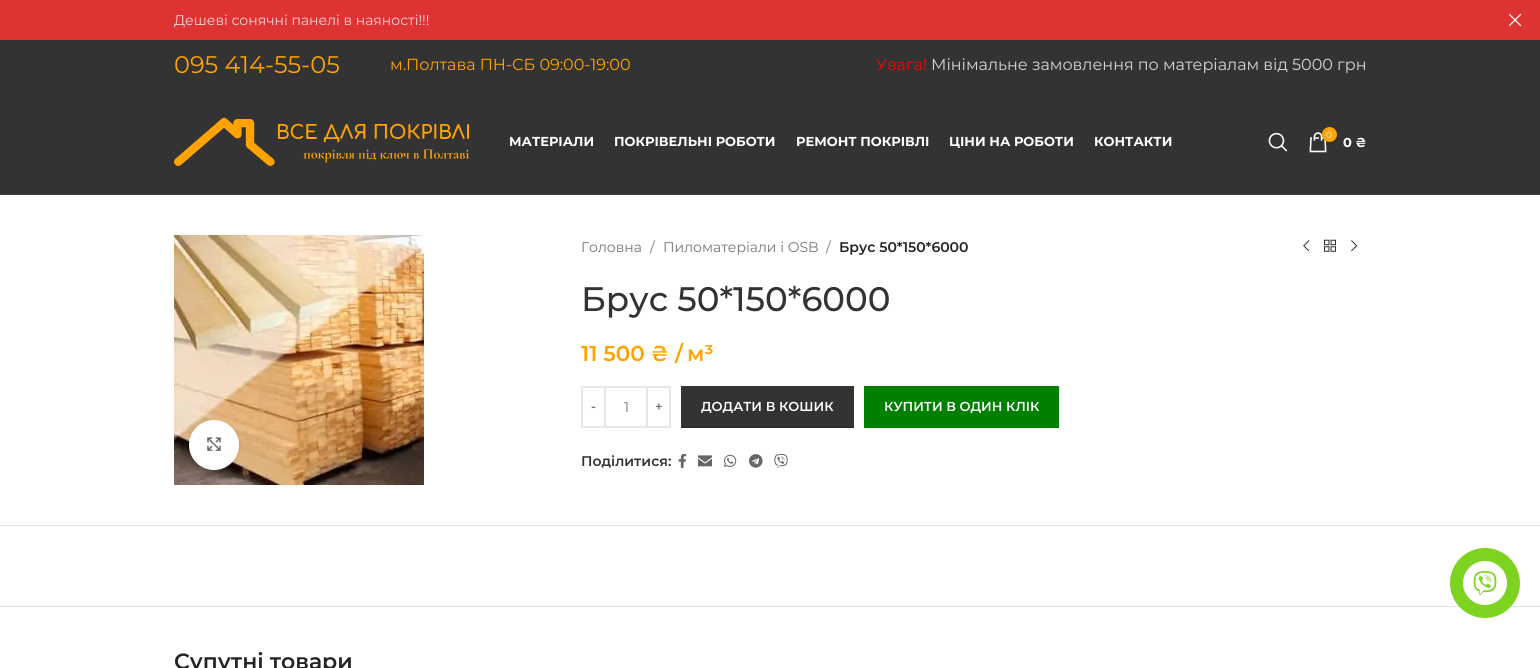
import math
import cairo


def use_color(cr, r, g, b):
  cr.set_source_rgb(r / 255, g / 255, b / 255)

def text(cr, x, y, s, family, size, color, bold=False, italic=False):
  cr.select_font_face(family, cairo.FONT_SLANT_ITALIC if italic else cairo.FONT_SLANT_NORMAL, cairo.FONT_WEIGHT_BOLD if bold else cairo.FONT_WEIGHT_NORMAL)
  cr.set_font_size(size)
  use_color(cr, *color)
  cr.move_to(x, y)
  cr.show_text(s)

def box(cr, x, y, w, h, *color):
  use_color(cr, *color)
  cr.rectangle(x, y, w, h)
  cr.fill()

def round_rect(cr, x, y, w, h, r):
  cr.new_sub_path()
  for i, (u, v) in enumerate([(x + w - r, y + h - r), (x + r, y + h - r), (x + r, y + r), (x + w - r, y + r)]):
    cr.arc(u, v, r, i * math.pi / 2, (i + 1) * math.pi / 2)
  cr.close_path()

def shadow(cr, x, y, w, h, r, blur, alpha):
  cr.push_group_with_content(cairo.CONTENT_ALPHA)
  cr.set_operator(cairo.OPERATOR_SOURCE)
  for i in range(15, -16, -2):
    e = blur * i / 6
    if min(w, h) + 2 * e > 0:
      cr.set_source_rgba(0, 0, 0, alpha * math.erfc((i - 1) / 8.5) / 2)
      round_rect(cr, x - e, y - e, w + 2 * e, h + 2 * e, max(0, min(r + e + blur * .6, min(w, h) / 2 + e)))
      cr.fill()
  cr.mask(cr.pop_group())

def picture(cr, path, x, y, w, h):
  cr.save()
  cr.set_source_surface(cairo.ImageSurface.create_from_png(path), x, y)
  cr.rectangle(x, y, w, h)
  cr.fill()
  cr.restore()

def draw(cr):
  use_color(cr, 255, 255, 255)
  cr.paint()
  box(cr, 0, 0, 1540, 40, 221, 51, 51)
  picture(cr, "img_01.png", 1508, 13, 14, 14)
  box(cr, 0, 40, 1540, 154, 51, 51, 51)
  box(cr, 0, 194, 1540, 1, 67, 67, 67)
  picture(cr, "img_02.png", 174, 117, 295, 49)
  picture(cr, "img_03.png", 1268, 132, 20, 20)
  picture(cr, "img_04.png", 1309, 132, 18, 21)
  use_color(cr, 255, 163, 0)
  cr.arc(1329.5, 134.5, 7.5, 0, 2 * math.pi)
  cr.fill()
  picture(cr, "img_05.png", 174, 235, 250, 250)
  use_color(cr, 0, 0, 0)
  shadow(cr, 189, 420, 50, 50, 25, 2.5, 0.08)
  use_color(cr, 255, 255, 255)
  cr.arc(214, 445, 25, 0, 2 * math.pi)
  cr.fill()
  picture(cr, "img_06.png", 207, 437, 14, 14)
  picture(cr, "img_07.png", 1303, 240, 7, 12)
  picture(cr, "img_08.png", 1324, 239, 12, 13)
  picture(cr, "img_09.png", 1351, 240, 7, 12)
  cr.rectangle(582, 387, 23, 40)
  use_color(cr, 230, 230, 230)
  cr.stroke()
  box(cr, 606, 386, 40, 2, 230, 230, 230)
  box(cr, 606, 426, 40, 2, 230, 230, 230)
  cr.rectangle(647, 387, 23, 40)
  cr.stroke()
  box(cr, 681, 386, 173, 40, 51, 51, 51)
  box(cr, 681, 426, 173, 2, 43, 43, 43)
  box(cr, 864, 386, 195, 42, 0, 128, 0)
  picture(cr, "img_10.png", 678, 453, 9, 15)
  picture(cr, "img_11.png", 698, 455, 14, 12)
  picture(cr, "img_12.png", 724, 454, 13, 13)
  picture(cr, "img_13.png", 749, 454, 14, 14)
  picture(cr, "img_14.png", 774, 453, 14, 15)
  box(cr, 0, 525, 1540, 1, 228, 228, 228)
  box(cr, 0, 606, 1540, 1, 228, 228, 228)
  use_color(cr, 126, 211, 33)
  cr.arc(1485, 583, 35, 0, 2 * math.pi)
  cr.fill()
  use_color(cr, 255, 255, 255)
  cr.arc(1485, 583, 22, 0, 2 * math.pi)
  cr.fill()
  picture(cr, "img_15.png", 1473, 571, 24, 24)
  text(cr, 174, 25, "Дешеві сонячні панелі в наяності!!!", "Montserrat", 14, (248, 214, 214))
  text(cr, 174, 73, "095 414-55-05", "Montserrat", 24, (255, 163, 0))
  text(cr, 390, 70, "м.Полтава ПН-СБ 09:00-19:00", "Montserrat", 16, (255, 163, 0))
  text(cr, 876, 70, "Увага!", "Montserrat", 16, (255, 0, 0))
  text(cr, 931, 70, "Мінімальне замовлення по матеріалам від 5000 грн", "Montserrat", 16, (214, 214, 214))
  text(cr, 509, 146, "МАТЕРІАЛИ", "Montserrat", 13, (255, 255, 255), bold=True)
  text(cr, 614, 146, "ПОКРІВЕЛЬНІ РОБОТИ", "Montserrat", 13, (255, 255, 255), bold=True)
  text(cr, 796, 146, "РЕМОНТ ПОКРІВЛІ", "Montserrat", 13, (255, 255, 255), bold=True)
  text(cr, 949, 146, "ЦІНИ НА РОБОТИ", "Montserrat", 13, (255, 255, 255), bold=True)
  text(cr, 1094, 146, "КОНТАКТИ", "Montserrat", 13, (255, 255, 255), bold=True)
  text(cr, 1326, 138, "0", "Montserrat", 9, (255, 255, 255))
  text(cr, 1343, 147, "0 ₴", "Montserrat", 13, (255, 255, 255), bold=True)
  text(cr, 581, 252, "Головна", "Montserrat", 14, (118, 118, 118))
  text(cr, 650, 252, "/", "Montserrat", 14, (118, 118, 118))
  text(cr, 663, 252, "Пиломатеріали і OSB", "Montserrat", 14, (118, 118, 118))
  text(cr, 826, 252, "/", "Montserrat", 14, (118, 118, 118))
  text(cr, 839, 252, "Брус 50*150*6000", "Montserrat SemiBold", 14, (36, 36, 36))
  text(cr, 581, 311, "Брус 50*150*6000", "Montserrat Medium", 34, (51, 51, 51))
  text(cr, 581, 361, "11 500 ₴", "Montserrat SemiBold", 21.5, (255, 163, 0))
  text(cr, 675, 361, "/", "Montserrat SemiBold", 21.5, (255, 163, 0))
  text(cr, 687, 361, "м³", "Montserrat SemiBold", 21.5, (255, 163, 0))
  text(cr, 591, 411, "-", "Montserrat SemiBold", 13, (118, 118, 118))
  text(cr, 624, 412, "1", "Montserrat", 14, (118, 118, 118))
  text(cr, 655, 411, "+", "Montserrat SemiBold", 13, (118, 118, 118))
  text(cr, 701, 411, "ДОДАТИ В КОШИК", "Montserrat SemiBold", 13, (255, 255, 255))
  text(cr, 884, 411, "КУПИТИ В ОДИН КЛІК", "Montserrat SemiBold", 13, (255, 255, 255))
  text(cr, 581, 466, "Поділитися:", "Montserrat SemiBold", 14, (51, 51, 51))
  text(cr, 174, 669, "Супутні товари", "Montserrat SemiBold", 22, (36, 36, 36))


surface = cairo.ImageSurface(cairo.FORMAT_RGB24, 1540, 668)
cr = cairo.Context(surface)
options = cairo.FontOptions()
options.set_hint_metrics(cairo.HINT_METRICS_OFF)
options.set_hint_style(cairo.HINT_STYLE_NONE)
cr.set_font_options(options)
cr.set_miter_limit(4)
draw(cr)
surface.write_to_png("out.png")
